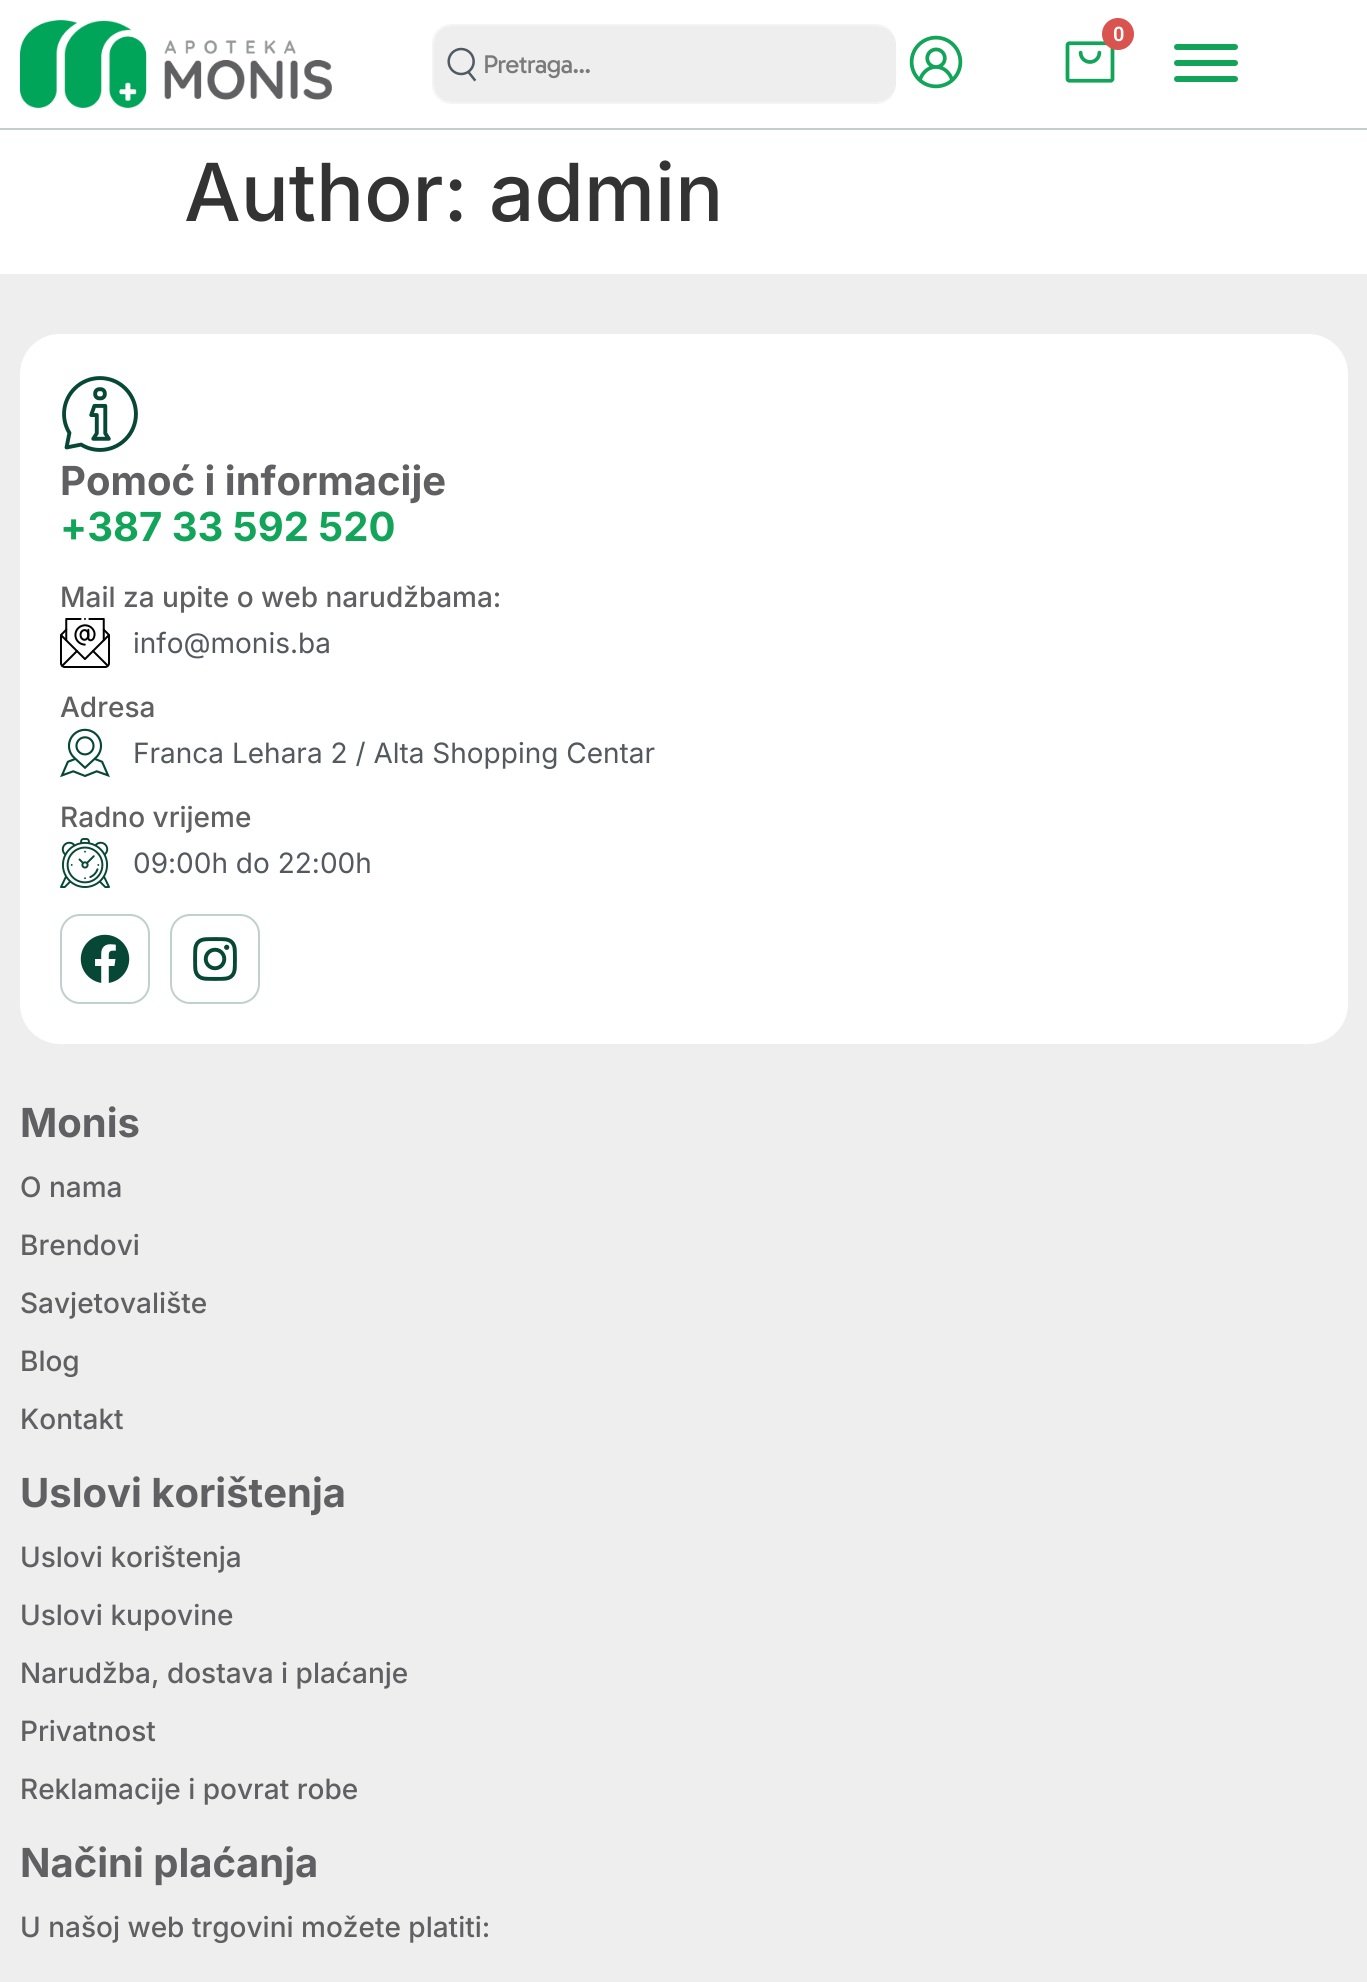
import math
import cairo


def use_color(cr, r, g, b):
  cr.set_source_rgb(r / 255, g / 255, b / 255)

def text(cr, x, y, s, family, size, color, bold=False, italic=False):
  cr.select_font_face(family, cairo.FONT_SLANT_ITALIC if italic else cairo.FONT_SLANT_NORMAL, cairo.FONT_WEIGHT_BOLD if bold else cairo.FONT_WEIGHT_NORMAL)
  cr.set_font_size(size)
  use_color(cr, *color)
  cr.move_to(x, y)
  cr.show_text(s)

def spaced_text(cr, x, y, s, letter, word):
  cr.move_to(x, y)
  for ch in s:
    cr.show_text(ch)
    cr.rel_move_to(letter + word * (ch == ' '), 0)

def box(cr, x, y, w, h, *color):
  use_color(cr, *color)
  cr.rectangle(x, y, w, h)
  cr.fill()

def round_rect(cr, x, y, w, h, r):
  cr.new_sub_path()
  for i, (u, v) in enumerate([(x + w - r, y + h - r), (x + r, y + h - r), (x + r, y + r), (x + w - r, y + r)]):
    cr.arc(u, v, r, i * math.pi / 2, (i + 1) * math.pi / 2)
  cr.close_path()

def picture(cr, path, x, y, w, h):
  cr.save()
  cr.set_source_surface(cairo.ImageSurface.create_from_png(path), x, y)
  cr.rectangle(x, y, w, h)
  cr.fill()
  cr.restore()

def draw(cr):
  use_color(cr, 255, 255, 255)
  cr.paint()
  box(cr, 0, 128, 1367, 2, 193, 207, 206)
  picture(cr, "img_01.png", 20, 20, 312, 88)
  picture(cr, "img_02.png", 909, 35, 54, 54)
  picture(cr, "img_03.png", 1065, 41, 50, 42)
  use_color(cr, 217, 83, 79)
  cr.arc(1118, 34, 16, 0, 2 * math.pi)
  cr.fill()
  use_color(cr, 238, 238, 238)
  cr.new_path()
  cr.move_to(452, 26)
  cr.line_to(876, 26)
  cr.curve_to(887, 26, 896, 34, 896, 44)
  cr.line_to(896, 84)
  cr.curve_to(896, 94, 887, 102, 876, 102)
  cr.line_to(452, 102)
  cr.curve_to(442, 102, 434, 94, 434, 84)
  cr.line_to(434, 44)
  cr.curve_to(434, 34, 442, 26, 452, 26)
  cr.close_path()
  cr.fill()
  use_color(cr, 244, 244, 244)
  cr.set_fill_rule(cairo.FILL_RULE_EVEN_ODD)
  cr.new_path()
  cr.move_to(452, 24)
  cr.line_to(876, 24)
  cr.curve_to(887, 24, 896, 33, 896, 44)
  cr.line_to(896, 84)
  cr.curve_to(896, 95, 887, 104, 876, 104)
  cr.line_to(452, 104)
  cr.curve_to(441, 104, 432, 95, 432, 84)
  cr.line_to(432, 44)
  cr.curve_to(432, 33, 441, 24, 452, 24)
  cr.close_path()
  cr.move_to(452, 26)
  cr.line_to(876, 26)
  cr.curve_to(887, 26, 896, 34, 896, 44)
  cr.line_to(896, 84)
  cr.curve_to(896, 94, 887, 102, 876, 102)
  cr.line_to(452, 102)
  cr.curve_to(442, 102, 434, 94, 434, 84)
  cr.line_to(434, 44)
  cr.curve_to(434, 34, 442, 26, 452, 26)
  cr.close_path()
  cr.fill()
  picture(cr, "img_04.png", 447, 47, 30, 35)
  use_color(cr, 18, 165, 89)
  round_rect(cr, 1174, 44, 64, 6, 3)
  cr.fill()
  round_rect(cr, 1174, 60, 64, 6, 3)
  cr.fill()
  round_rect(cr, 1174, 76, 64, 6, 3)
  cr.fill()
  box(cr, 0, 274, 1367, 1708, 238, 238, 238)
  use_color(cr, 255, 255, 255)
  round_rect(cr, 20, 334, 1328, 710, 40)
  cr.fill()
  picture(cr, "img_05.png", 62, 376, 76, 76)
  picture(cr, "img_06.png", 60, 618, 50, 50)
  picture(cr, "img_07.png", 60, 728, 50, 50)
  picture(cr, "img_08.png", 60, 838, 50, 50)
  round_rect(cr, 61, 915, 88, 88, 19)
  use_color(cr, 193, 207, 206)
  cr.stroke()
  picture(cr, "img_09.png", 80, 934, 50, 49)
  round_rect(cr, 171, 915, 88, 88, 19)
  cr.stroke()
  picture(cr, "img_10.png", 193, 937, 44, 44)
  text(cr, 1113, 41, "0", "Roboto SemiBold", 20, (255, 255, 255))
  cr.select_font_face("Gabarito")
  cr.set_font_size(26)
  use_color(cr, 122, 122, 122)
  spaced_text(cr, 483, 73, "Pretraga...", -1, 0)
  text(cr, 184, 221, "Author: admin", "Inter Medium", 80, (51, 51, 51))
  text(cr, 60, 495, "Pomoć i informacije", "Inter", 40, (96, 96, 98), bold=True)
  text(cr, 60, 541, "+387 33 592 520", "Inter", 40, (18, 165, 90), bold=True)
  text(cr, 60, 607, "Mail za upite o web narudžbama:", "Inter Medium", 28, (96, 96, 98))
  text(cr, 133, 653, "info@monis.ba", "Inter", 28, (84, 89, 95))
  text(cr, 60, 717, "Adresa", "Inter Medium", 28, (96, 96, 98))
  text(cr, 133, 763, "Franca Lehara 2 / Alta Shopping Centar", "Inter", 28, (84, 89, 95))
  text(cr, 60, 827, "Radno vrijeme", "Inter Medium", 28, (96, 96, 98))
  text(cr, 133, 873, "09:00h do 22:00h", "Inter", 28, (84, 89, 95))
  text(cr, 20, 1137, "Monis", "Inter", 40, (96, 96, 98), bold=True)
  text(cr, 20, 1197, "O nama", "Inter Medium", 28, (96, 96, 98))
  text(cr, 20, 1255, "Brendovi", "Inter Medium", 28, (96, 96, 98))
  text(cr, 20, 1313, "Savjetovalište", "Inter Medium", 28, (96, 96, 98))
  text(cr, 20, 1371, "Blog", "Inter Medium", 28, (96, 96, 98))
  text(cr, 20, 1429, "Kontakt", "Inter Medium", 28, (96, 96, 98))
  text(cr, 20, 1507, "Uslovi korištenja", "Inter", 40, (96, 96, 98), bold=True)
  text(cr, 20, 1567, "Uslovi korištenja", "Inter Medium", 28, (96, 96, 98))
  text(cr, 20, 1625, "Uslovi kupovine", "Inter Medium", 28, (96, 96, 98))
  text(cr, 20, 1683, "Narudžba, dostava i plaćanje", "Inter Medium", 28, (96, 96, 98))
  text(cr, 20, 1741, "Privatnost", "Inter Medium", 28, (96, 96, 98))
  text(cr, 20, 1799, "Reklamacije i povrat robe", "Inter Medium", 28, (96, 96, 98))
  text(cr, 20, 1877, "Načini plaćanja", "Inter", 40, (96, 96, 98), bold=True)
  text(cr, 20, 1937, "U našoj web trgovini možete platiti:", "Inter Medium", 28, (96, 96, 98))


surface = cairo.ImageSurface(cairo.FORMAT_RGB24, 1367, 1982)
cr = cairo.Context(surface)
options = cairo.FontOptions()
options.set_hint_metrics(cairo.HINT_METRICS_OFF)
options.set_hint_style(cairo.HINT_STYLE_NONE)
cr.set_font_options(options)
cr.set_miter_limit(4)
draw(cr)
surface.write_to_png("out.png")
